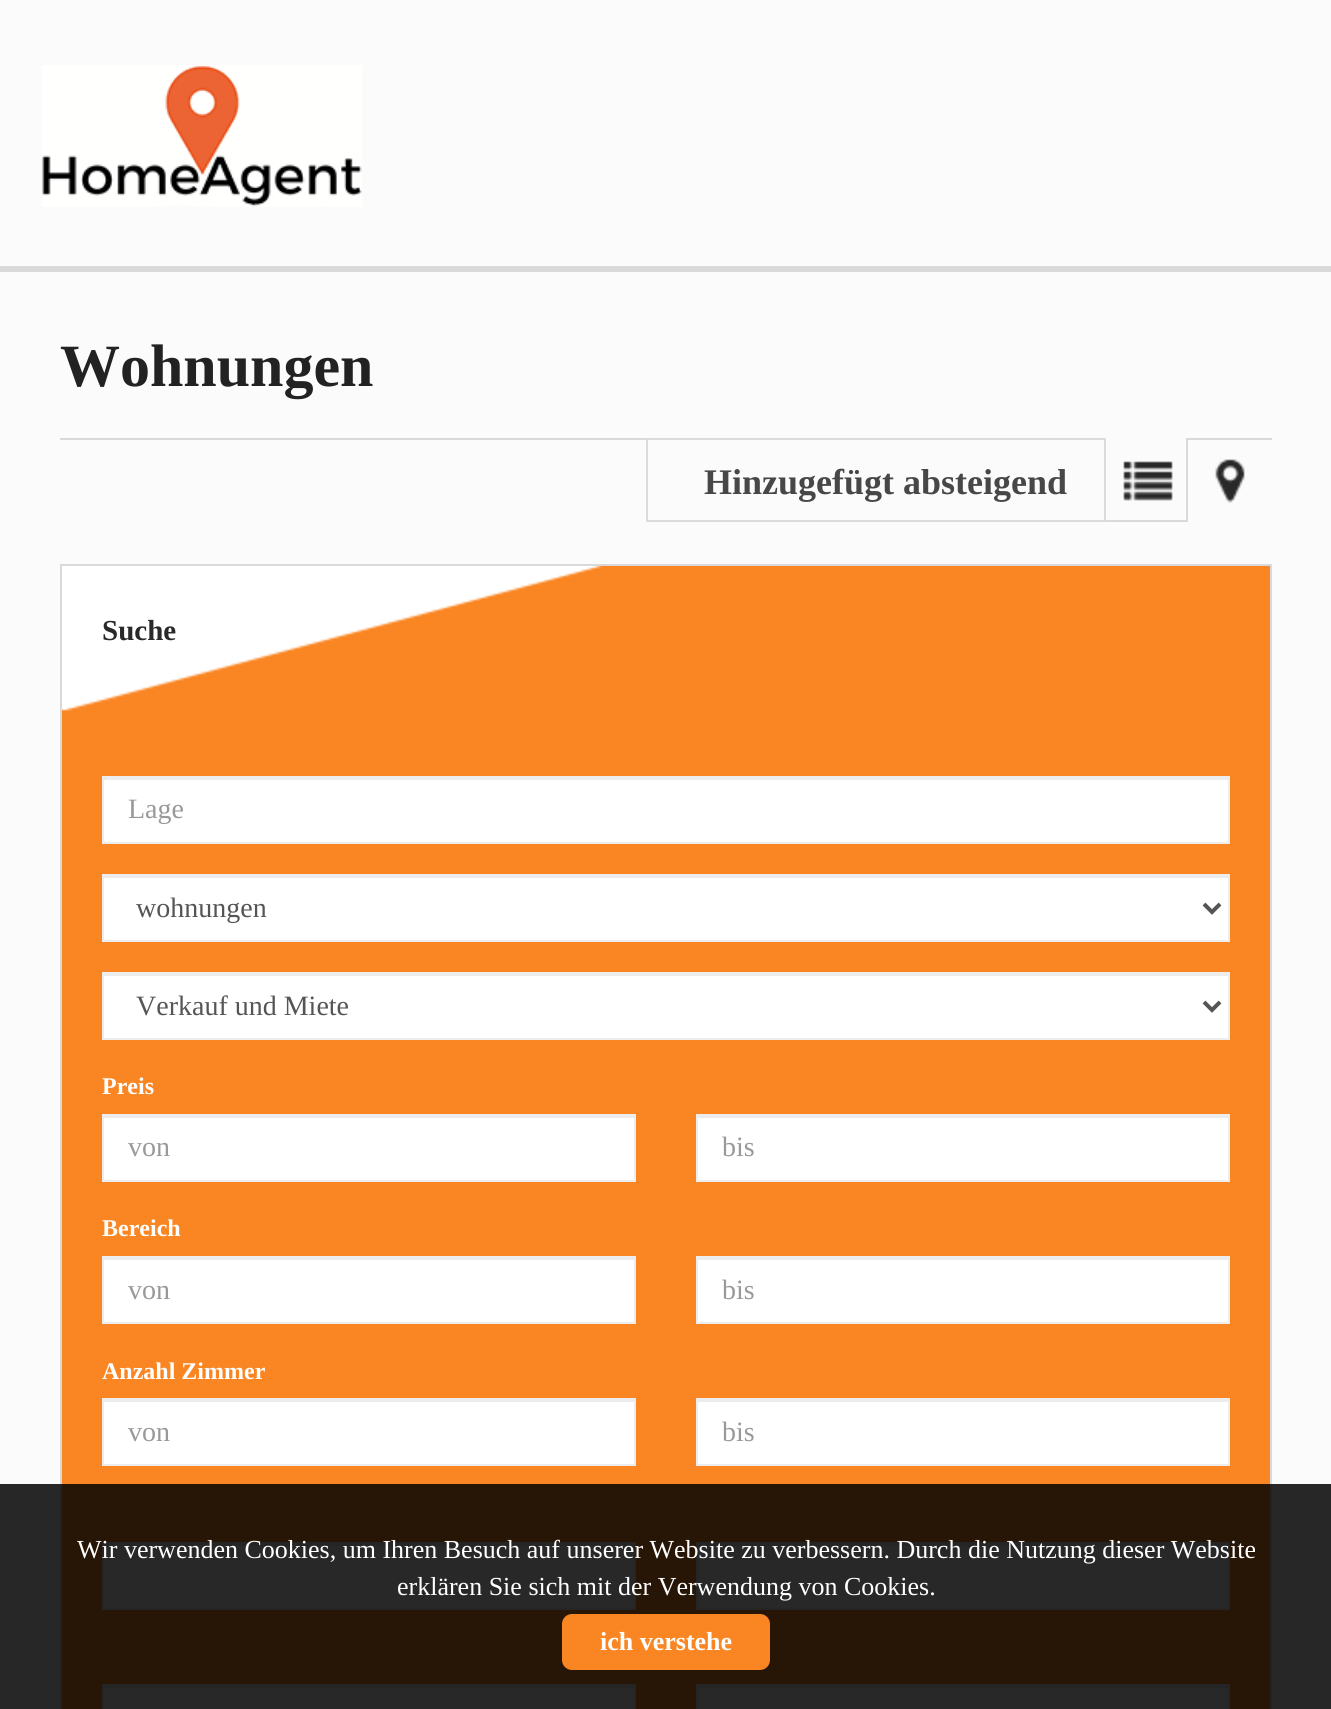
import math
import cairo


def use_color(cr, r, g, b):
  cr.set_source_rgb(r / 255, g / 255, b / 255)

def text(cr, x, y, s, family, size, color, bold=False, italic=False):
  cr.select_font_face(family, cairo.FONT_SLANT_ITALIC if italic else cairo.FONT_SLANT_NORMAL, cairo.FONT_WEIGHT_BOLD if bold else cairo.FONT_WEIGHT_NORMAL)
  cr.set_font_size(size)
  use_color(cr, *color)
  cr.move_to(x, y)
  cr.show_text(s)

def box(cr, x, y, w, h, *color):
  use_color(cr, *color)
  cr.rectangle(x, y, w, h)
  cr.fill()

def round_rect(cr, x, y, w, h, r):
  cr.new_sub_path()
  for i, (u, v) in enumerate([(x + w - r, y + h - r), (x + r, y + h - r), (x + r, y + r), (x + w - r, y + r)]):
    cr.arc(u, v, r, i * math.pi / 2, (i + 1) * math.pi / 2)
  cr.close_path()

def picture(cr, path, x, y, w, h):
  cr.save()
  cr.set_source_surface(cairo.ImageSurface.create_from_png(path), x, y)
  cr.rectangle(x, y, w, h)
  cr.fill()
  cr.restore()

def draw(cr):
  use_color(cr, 251, 251, 251)
  cr.paint()
  box(cr, 0, 266, 1331, 6, 217, 217, 217)
  picture(cr, "img_01.png", 42, 65, 320, 142)
  box(cr, 60, 438, 1212, 2, 217, 217, 217)
  box(cr, 1186, 438, 2, 84, 217, 217, 217)
  box(cr, 1104, 520, 84, 2, 217, 217, 217)
  cr.rectangle(647, 439, 458, 82)
  use_color(cr, 219, 219, 219)
  cr.stroke()
  box(cr, 1106, 438, 80, 2, 251, 251, 251)
  picture(cr, "img_02.png", 1123, 461, 50, 40)
  picture(cr, "img_03.png", 1215, 459, 30, 44)
  use_color(cr, 250, 134, 35)
  cr.rectangle(61, 565, 1210, 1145)
  cr.fill_preserve()
  use_color(cr, 217, 217, 217)
  cr.stroke()
  picture(cr, "img_04.png", 62, 566, 540, 145)
  use_color(cr, 255, 255, 255)
  round_rect(cr, 102, 776, 1128, 68, 8)
  cr.fill()
  cr.set_source_rgba(0, 0, 0, 0.07)
  cr.rectangle(104, 778, 1124, 2)
  cr.fill()
  cr.rectangle(103, 777, 1126, 66)
  use_color(cr, 237, 237, 237)
  cr.stroke()
  box(cr, 104, 878, 1124, 62, 255, 255, 255)
  box(cr, 104, 876, 1124, 2, 236, 236, 236)
  cr.rectangle(103, 875, 1126, 66)
  use_color(cr, 237, 237, 237)
  cr.stroke()
  cr.new_path()
  cr.move_to(1204, 904)
  cr.line_to(1212, 912)
  cr.line_to(1220, 904)
  use_color(cr, 85, 85, 85)
  cr.set_line_width(4)
  cr.stroke()
  box(cr, 104, 976, 1124, 62, 255, 255, 255)
  box(cr, 104, 974, 1124, 2, 236, 236, 236)
  cr.rectangle(103, 973, 1126, 66)
  use_color(cr, 237, 237, 237)
  cr.set_line_width(2)
  cr.stroke()
  cr.new_path()
  cr.move_to(1204, 1002)
  cr.line_to(1212, 1010)
  cr.line_to(1220, 1002)
  use_color(cr, 85, 85, 85)
  cr.set_line_width(4)
  cr.stroke()
  box(cr, 104, 1118, 530, 62, 255, 255, 255)
  box(cr, 104, 1116, 530, 2, 236, 236, 236)
  cr.rectangle(103, 1115, 532, 66)
  use_color(cr, 237, 237, 237)
  cr.set_line_width(2)
  cr.stroke()
  box(cr, 698, 1118, 530, 62, 255, 255, 255)
  box(cr, 698, 1116, 530, 2, 236, 236, 236)
  cr.rectangle(697, 1115, 532, 66)
  use_color(cr, 237, 237, 237)
  cr.stroke()
  box(cr, 104, 1260, 530, 62, 255, 255, 255)
  box(cr, 104, 1258, 530, 2, 236, 236, 236)
  cr.rectangle(103, 1257, 532, 66)
  use_color(cr, 237, 237, 237)
  cr.stroke()
  box(cr, 698, 1260, 530, 62, 255, 255, 255)
  box(cr, 698, 1258, 530, 2, 236, 236, 236)
  cr.rectangle(697, 1257, 532, 66)
  use_color(cr, 237, 237, 237)
  cr.stroke()
  box(cr, 104, 1402, 530, 62, 255, 255, 255)
  box(cr, 104, 1400, 530, 2, 236, 236, 236)
  cr.rectangle(103, 1399, 532, 66)
  use_color(cr, 237, 237, 237)
  cr.stroke()
  box(cr, 698, 1402, 530, 62, 255, 255, 255)
  box(cr, 698, 1400, 530, 2, 236, 236, 236)
  cr.rectangle(697, 1399, 532, 66)
  use_color(cr, 237, 237, 237)
  cr.stroke()
  box(cr, 104, 1546, 530, 62, 255, 255, 255)
  box(cr, 104, 1544, 530, 2, 236, 236, 236)
  cr.rectangle(103, 1543, 532, 66)
  use_color(cr, 237, 237, 237)
  cr.stroke()
  box(cr, 698, 1546, 530, 62, 255, 255, 255)
  box(cr, 698, 1544, 530, 2, 236, 236, 236)
  cr.rectangle(697, 1543, 532, 66)
  use_color(cr, 237, 237, 237)
  cr.stroke()
  box(cr, 104, 1688, 530, 21, 255, 255, 255)
  box(cr, 104, 1686, 530, 2, 236, 236, 236)
  cr.rectangle(103, 1685, 532, 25)
  use_color(cr, 237, 237, 237)
  cr.stroke()
  box(cr, 698, 1688, 530, 21, 255, 255, 255)
  box(cr, 698, 1686, 530, 2, 236, 236, 236)
  cr.rectangle(697, 1685, 532, 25)
  use_color(cr, 237, 237, 237)
  cr.stroke()
  cr.set_source_rgba(0, 0, 0, 0.84)
  cr.rectangle(0, 1484, 1331, 225)
  cr.fill()
  use_color(cr, 250, 134, 35)
  round_rect(cr, 562, 1614, 208, 56, 10)
  cr.fill()
  text(cr, 60, 386, "Wohnungen", "Liberation Serif", 60, (34, 34, 34), bold=True)
  text(cr, 704, 494, "Hinzugefügt absteigend", "Liberation Serif", 36, (71, 71, 71), bold=True)
  text(cr, 102, 640, "Suche", "Liberation Serif", 29, (41, 41, 41), bold=True)
  text(cr, 128, 818, "Lage", "Liberation Serif", 28, (153, 153, 153))
  text(cr, 136, 917, "wohnungen", "Liberation Serif", 28, (85, 85, 85))
  text(cr, 136, 1015, "Verkauf und Miete", "Liberation Serif", 28, (85, 85, 85))
  text(cr, 102, 1094, "Preis", "Liberation Serif", 24, (255, 255, 255), bold=True)
  text(cr, 128, 1156, "von", "Liberation Serif", 28, (153, 153, 153))
  text(cr, 722, 1156, "bis", "Liberation Serif", 28, (153, 153, 153))
  text(cr, 102, 1236, "Bereich", "Liberation Serif", 24, (255, 255, 255), bold=True)
  text(cr, 128, 1299, "von", "Liberation Serif", 28, (153, 153, 153))
  text(cr, 722, 1299, "bis", "Liberation Serif", 28, (153, 153, 153))
  text(cr, 102, 1379, "Anzahl Zimmer", "Liberation Serif", 24, (255, 255, 255), bold=True)
  text(cr, 128, 1441, "von", "Liberation Serif", 28, (153, 153, 153))
  text(cr, 722, 1441, "bis", "Liberation Serif", 28, (153, 153, 153))
  text(cr, 77, 1558, "Wir verwenden Cookies, um Ihren Besuch auf unserer Website zu verbessern. Durch die Nutzung dieser Website", "Liberation Serif", 26, (255, 255, 255))
  text(cr, 397, 1595, "erklären Sie sich mit der Verwendung von Cookies.", "Liberation Serif", 26, (255, 255, 255))
  text(cr, 600, 1650, "ich verstehe", "Liberation Serif", 26, (255, 255, 255), bold=True)


surface = cairo.ImageSurface(cairo.FORMAT_RGB24, 1331, 1709)
cr = cairo.Context(surface)
options = cairo.FontOptions()
options.set_hint_metrics(cairo.HINT_METRICS_OFF)
options.set_hint_style(cairo.HINT_STYLE_NONE)
cr.set_font_options(options)
cr.set_miter_limit(4)
draw(cr)
surface.write_to_png("out.png")
